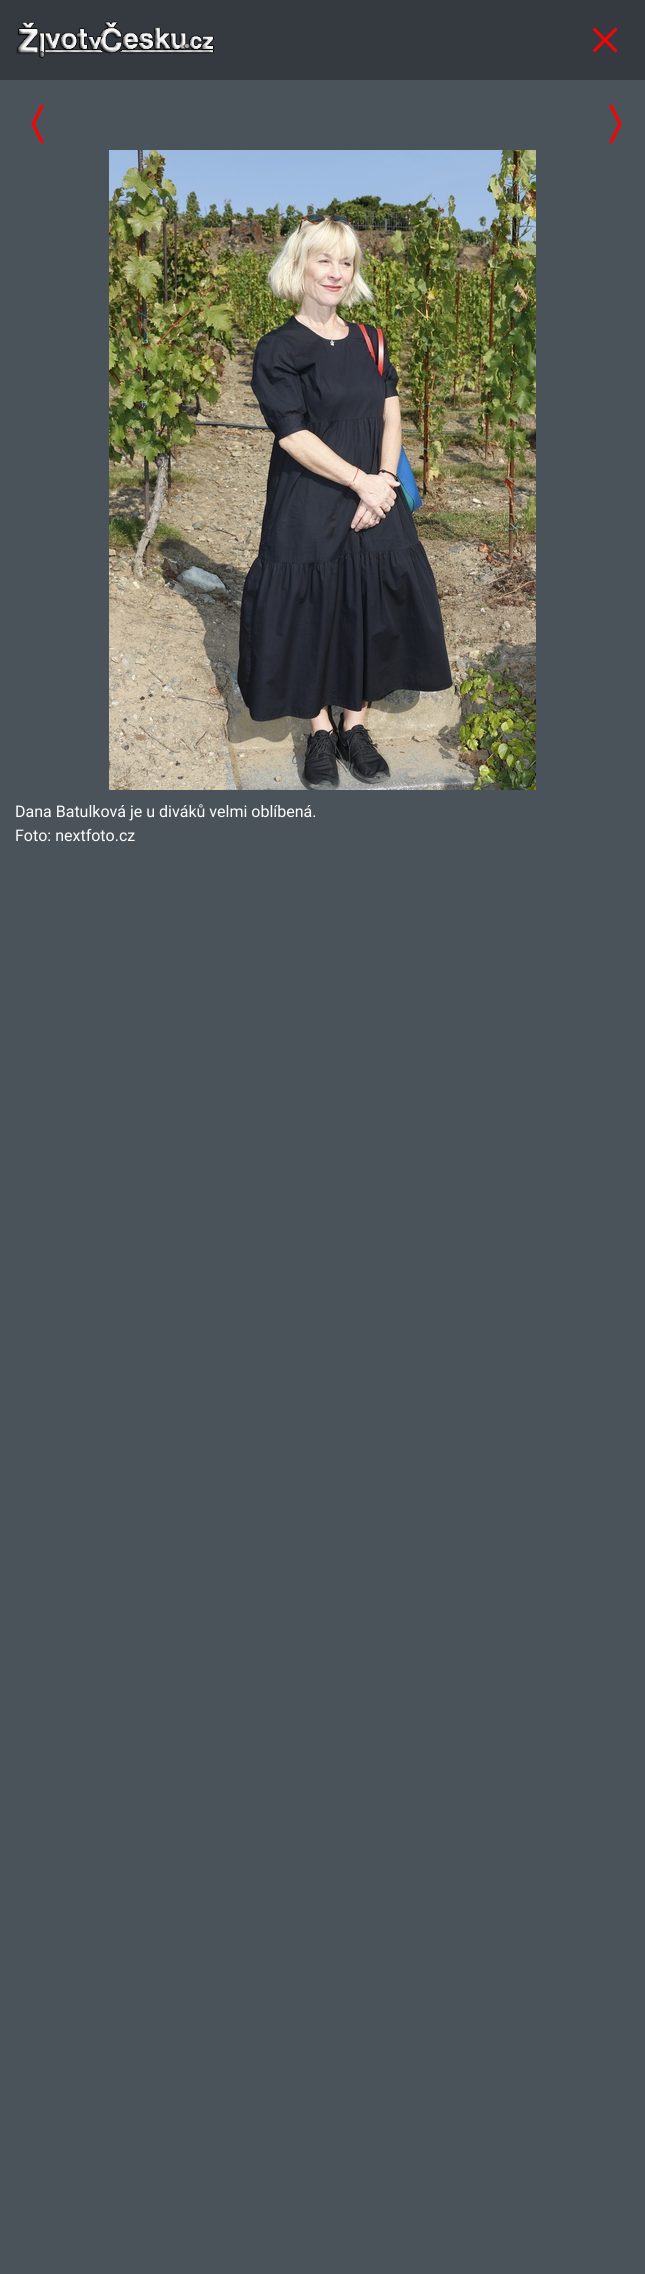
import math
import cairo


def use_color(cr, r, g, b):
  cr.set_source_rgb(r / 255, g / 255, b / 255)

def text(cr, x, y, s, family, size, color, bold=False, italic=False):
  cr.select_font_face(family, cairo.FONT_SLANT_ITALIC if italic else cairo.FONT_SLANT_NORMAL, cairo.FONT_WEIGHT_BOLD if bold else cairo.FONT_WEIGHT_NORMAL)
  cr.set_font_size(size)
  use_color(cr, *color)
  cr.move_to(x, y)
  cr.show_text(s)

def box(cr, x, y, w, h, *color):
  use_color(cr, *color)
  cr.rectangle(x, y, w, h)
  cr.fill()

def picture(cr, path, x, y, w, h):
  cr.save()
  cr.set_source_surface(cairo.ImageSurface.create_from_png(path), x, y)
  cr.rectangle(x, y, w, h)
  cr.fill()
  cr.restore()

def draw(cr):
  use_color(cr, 74, 82, 90)
  cr.paint()
  box(cr, 0, 0, 645, 80, 52, 58, 64)
  picture(cr, "img_01.png", 16, 21, 198, 37)
  picture(cr, "img_02.png", 593, 28, 24, 24)
  picture(cr, "img_03.png", 31, 104, 13, 40)
  picture(cr, "img_04.png", 609, 104, 13, 40)
  picture(cr, "img_05.png", 109, 150, 427, 640)
  text(cr, 15, 817, "Dana Batulková je u diváků velmi oblíbená.", "Roboto", 16, (255, 255, 255))
  text(cr, 15, 841, "Foto: nextfoto.cz", "Roboto", 16, (255, 255, 255))


surface = cairo.ImageSurface(cairo.FORMAT_RGB24, 645, 2274)
cr = cairo.Context(surface)
options = cairo.FontOptions()
options.set_hint_metrics(cairo.HINT_METRICS_OFF)
options.set_hint_style(cairo.HINT_STYLE_NONE)
cr.set_font_options(options)
cr.set_miter_limit(4)
draw(cr)
surface.write_to_png("out.png")
